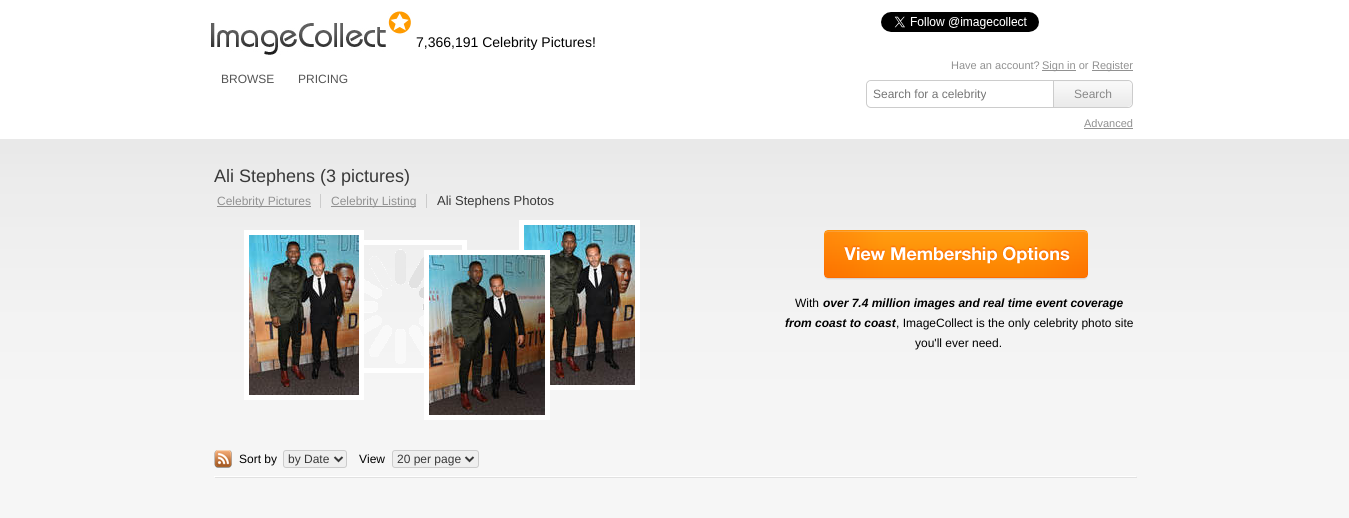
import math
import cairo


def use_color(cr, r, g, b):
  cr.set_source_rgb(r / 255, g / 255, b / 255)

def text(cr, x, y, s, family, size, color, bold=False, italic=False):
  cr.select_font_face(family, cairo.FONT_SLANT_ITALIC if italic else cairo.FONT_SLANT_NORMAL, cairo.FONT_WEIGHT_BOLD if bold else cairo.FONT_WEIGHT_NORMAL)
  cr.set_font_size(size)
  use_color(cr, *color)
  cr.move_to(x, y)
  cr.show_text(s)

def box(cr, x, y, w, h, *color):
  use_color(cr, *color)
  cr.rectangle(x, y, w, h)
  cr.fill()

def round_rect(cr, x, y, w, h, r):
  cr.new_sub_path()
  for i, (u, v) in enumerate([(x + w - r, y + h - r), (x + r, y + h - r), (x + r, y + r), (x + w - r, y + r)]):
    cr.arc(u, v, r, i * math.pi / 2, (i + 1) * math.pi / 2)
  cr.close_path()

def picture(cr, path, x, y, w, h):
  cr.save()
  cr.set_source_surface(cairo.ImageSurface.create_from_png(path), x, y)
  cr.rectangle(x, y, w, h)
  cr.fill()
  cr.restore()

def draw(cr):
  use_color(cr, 255, 255, 255)
  cr.paint()
  picture(cr, "img_01.png", 881, 12, 158, 20)
  picture(cr, "img_02.png", 211, 11, 200, 44)
  box(cr, 1042, 70, 34, 1, 145, 145, 145)
  box(cr, 1092, 70, 41, 1, 145, 145, 145)
  round_rect(cr, 866.5, 80.5, 266, 27, 4.5)
  use_color(cr, 204, 204, 204)
  cr.set_line_width(1)
  cr.stroke()
  use_color(cr, 255, 255, 255)
  cr.new_path()
  cr.move_to(872, 81)
  cr.line_to(1039, 81)
  cr.line_to(1039, 106)
  cr.line_to(872, 106)
  cr.curve_to(869, 106, 867, 104, 867, 101)
  cr.line_to(867, 86)
  cr.curve_to(867, 83, 869, 81, 872, 81)
  cr.close_path()
  cr.fill()
  picture(cr, "img_03.png", 1054, 81, 78, 26)
  box(cr, 1053, 81, 1, 26, 204, 204, 204)
  box(cr, 1084, 128, 49, 1, 145, 145, 145)
  picture(cr, "img_04.png", 0, 138, 1349, 380)
  box(cr, 320, 194, 1, 14, 204, 204, 204)
  box(cr, 217, 206, 94, 1, 145, 145, 145)
  box(cr, 426, 194, 1, 14, 204, 204, 204)
  box(cr, 331, 206, 85, 1, 145, 145, 145)
  cr.rectangle(336.5, 242.5, 128, 128)
  use_color(cr, 255, 255, 255)
  cr.set_line_width(5)
  cr.stroke()
  cr.rectangle(246.5, 232.5, 115, 165)
  cr.stroke()
  picture(cr, "img_05.png", 249, 235, 110, 160)
  picture(cr, "img_06.png", 364, 249, 60, 115)
  cr.rectangle(521.5, 222.5, 116, 165)
  cr.stroke()
  picture(cr, "img_08.png", 524, 225, 111, 160)
  cr.rectangle(426.5, 252.5, 121, 165)
  cr.stroke()
  picture(cr, "img_07.png", 429, 255, 116, 160)
  picture(cr, "img_09.png", 824, 230, 264, 50)
  picture(cr, "img_10.png", 214, 450, 18, 18)
  use_color(cr, 239, 239, 239)
  round_rect(cr, 283.5, 450.5, 63, 17, 2.5)
  cr.fill_preserve()
  use_color(cr, 204, 204, 204)
  cr.set_line_width(1)
  cr.stroke()
  cr.new_path()
  cr.move_to(334.5, 457)
  cr.line_to(338.5, 461)
  cr.line_to(342.5, 457)
  use_color(cr, 56, 56, 56)
  cr.set_line_width(2)
  cr.stroke()
  use_color(cr, 239, 239, 239)
  round_rect(cr, 392.5, 450.5, 86, 17, 2.5)
  cr.fill_preserve()
  use_color(cr, 204, 204, 204)
  cr.set_line_width(1)
  cr.stroke()
  cr.new_path()
  cr.move_to(465.5, 457)
  cr.line_to(469.5, 461)
  cr.line_to(473.5, 457)
  use_color(cr, 56, 56, 56)
  cr.set_line_width(2)
  cr.stroke()
  box(cr, 215, 477, 922, 1, 225, 225, 225)
  box(cr, 214, 476, 922, 1, 255, 255, 255)
  text(cr, 416, 47, "7,366,191 Celebrity Pictures!", "Liberation Sans", 14, (0, 0, 0))
  text(cr, 221, 83, "BROWSE", "Liberation Sans", 12, (84, 84, 84))
  text(cr, 298, 83, "PRICING", "Liberation Sans", 12, (84, 84, 84))
  text(cr, 951, 69, "Have an account?", "Liberation Sans", 11, (145, 145, 145))
  text(cr, 1042, 69, "Sign in or", "Liberation Sans", 11, (145, 145, 145))
  text(cr, 1092, 69, "Register", "Liberation Sans", 11, (145, 145, 145))
  text(cr, 873, 98, "Search for a celebrity", "Liberation Sans", 12, (117, 117, 117))
  text(cr, 1074, 98, "Search", "Liberation Sans", 12, (136, 136, 136))
  text(cr, 1084, 127, "Advanced", "Liberation Sans", 11, (145, 145, 145))
  text(cr, 214, 182, "Ali Stephens (3 pictures)", "Liberation Sans", 18, (56, 56, 56))
  text(cr, 217, 205, "Celebrity Pictures", "Liberation Sans", 12, (145, 145, 145))
  text(cr, 331, 205, "Celebrity Listing", "Liberation Sans", 12, (145, 145, 145))
  text(cr, 437, 205, "Ali Stephens Photos", "Liberation Sans", 13, (56, 56, 56))
  text(cr, 795, 307, "With", "Liberation Sans", 12, (0, 0, 0))
  text(cr, 823, 307, "over 7.4 million images and real time event coverage", "Liberation Sans", 12, (0, 0, 0), bold=True, italic=True)
  text(cr, 785, 327, "from coast to coast", "Liberation Sans", 12, (0, 0, 0), bold=True, italic=True)
  text(cr, 896, 327, ", ImageCollect is the only celebrity photo site", "Liberation Sans", 12, (0, 0, 0))
  text(cr, 915, 347, "you'll ever need.", "Liberation Sans", 12, (0, 0, 0))
  text(cr, 239, 463, "Sort by", "Liberation Sans", 12, (0, 0, 0))
  text(cr, 288, 463, "by Date", "Liberation Sans", 12, (56, 56, 56))
  text(cr, 359, 463, "View", "Liberation Sans", 12, (0, 0, 0))
  text(cr, 397, 463, "20 per page", "Liberation Sans", 12, (56, 56, 56))


surface = cairo.ImageSurface(cairo.FORMAT_RGB24, 1349, 518)
cr = cairo.Context(surface)
options = cairo.FontOptions()
options.set_hint_metrics(cairo.HINT_METRICS_OFF)
options.set_hint_style(cairo.HINT_STYLE_NONE)
cr.set_font_options(options)
cr.set_miter_limit(4)
draw(cr)
surface.write_to_png("out.png")
